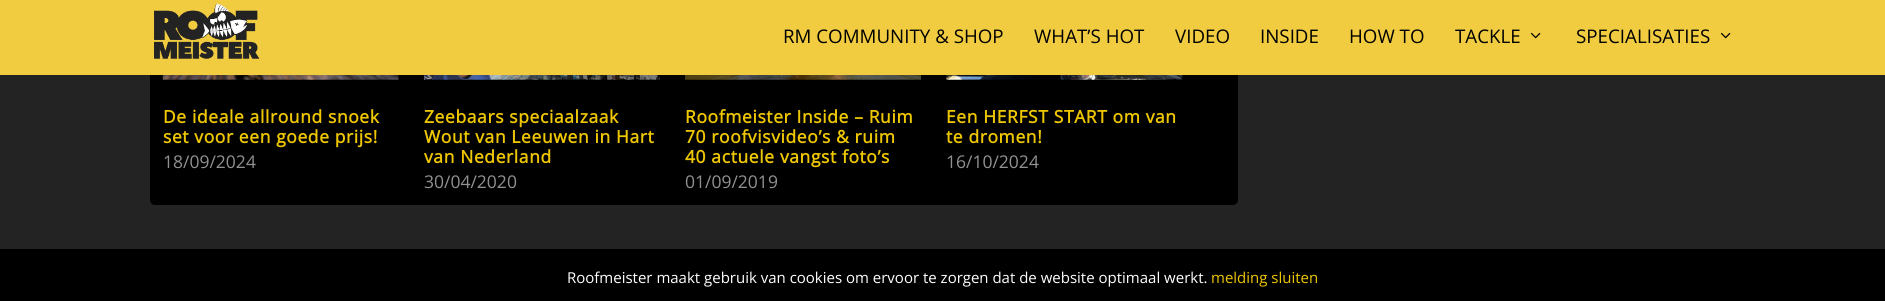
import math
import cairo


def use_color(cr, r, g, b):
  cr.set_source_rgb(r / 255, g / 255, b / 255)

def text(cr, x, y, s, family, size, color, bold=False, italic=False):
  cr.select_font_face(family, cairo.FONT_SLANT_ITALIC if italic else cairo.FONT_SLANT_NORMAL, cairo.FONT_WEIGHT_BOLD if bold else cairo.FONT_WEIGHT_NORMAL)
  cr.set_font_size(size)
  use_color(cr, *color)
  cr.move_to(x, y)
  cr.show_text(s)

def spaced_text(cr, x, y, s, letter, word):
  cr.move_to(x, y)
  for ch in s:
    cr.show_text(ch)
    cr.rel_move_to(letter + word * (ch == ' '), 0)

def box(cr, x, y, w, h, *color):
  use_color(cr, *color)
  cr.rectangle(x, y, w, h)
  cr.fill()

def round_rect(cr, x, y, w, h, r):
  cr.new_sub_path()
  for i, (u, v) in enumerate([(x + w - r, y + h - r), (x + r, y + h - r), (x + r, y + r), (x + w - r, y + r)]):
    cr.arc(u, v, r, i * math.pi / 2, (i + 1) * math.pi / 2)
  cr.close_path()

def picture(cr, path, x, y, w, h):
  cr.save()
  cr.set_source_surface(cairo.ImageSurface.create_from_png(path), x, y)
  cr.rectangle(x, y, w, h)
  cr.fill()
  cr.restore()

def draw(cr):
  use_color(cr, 35, 35, 35)
  cr.paint()
  use_color(cr, 0, 0, 0)
  round_rect(cr, 150, -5, 1088, 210, 5)
  cr.fill()
  box(cr, 0, 0, 1885, 75, 241, 204, 65)
  picture(cr, "img_01.png", 154, 3, 106, 56)
  picture(cr, "img_02.png", 1531, 32, 10, 7)
  picture(cr, "img_02.png", 1721, 32, 10, 7)
  picture(cr, "img_03.png", 162, 75, 237, 5)
  picture(cr, "img_04.png", 423, 75, 237, 5)
  picture(cr, "img_05.png", 685, 75, 237, 5)
  picture(cr, "img_06.png", 946, 75, 237, 5)
  box(cr, 0, 249, 1885, 52, 0, 0, 0)
  text(cr, 783, 43, "RM COMMUNITY & SHOP", "Open Sans", 18.75, (0, 0, 0))
  text(cr, 1034, 43, "WHAT’S HOT", "Open Sans", 18.75, (0, 0, 0))
  text(cr, 1175, 43, "VIDEO", "Open Sans", 18.75, (0, 0, 0))
  text(cr, 1260, 43, "INSIDE", "Open Sans", 18.75, (0, 0, 0))
  text(cr, 1349, 43, "HOW TO", "Open Sans", 18.75, (0, 0, 0))
  text(cr, 1455, 43, "TACKLE", "Open Sans", 18.75, (0, 0, 0))
  text(cr, 1576, 43, "SPECIALISATIES", "Open Sans", 18.75, (0, 0, 0))
  cr.select_font_face("Open Sans", cairo.FONT_SLANT_NORMAL, cairo.FONT_WEIGHT_BOLD)
  cr.set_font_size(17.5)
  use_color(cr, 239, 199, 1)
  spaced_text(cr, 163, 123, "De ideale allround snoek", 0.6, 0)
  spaced_text(cr, 163, 143, "set voor een goede prijs!", 0.6, 0)
  text(cr, 163, 168, "18/09/2024", "Open Sans", 17.5, (145, 145, 145))
  cr.select_font_face("Open Sans", cairo.FONT_SLANT_NORMAL, cairo.FONT_WEIGHT_BOLD)
  use_color(cr, 239, 199, 1)
  spaced_text(cr, 424, 123, "Zeebaars speciaalzaak", 0.6, 0)
  spaced_text(cr, 424, 143, "Wout van Leeuwen in Hart", 0.6, 0)
  spaced_text(cr, 424, 163, "van Nederland", 0.6, 0)
  text(cr, 424, 188, "30/04/2020", "Open Sans", 17.5, (145, 145, 145))
  cr.select_font_face("Open Sans", cairo.FONT_SLANT_NORMAL, cairo.FONT_WEIGHT_BOLD)
  use_color(cr, 239, 199, 1)
  spaced_text(cr, 685, 123, "Roofmeister Inside – Ruim", 0.6, 0)
  spaced_text(cr, 685, 143, "70 roofvisvideo’s & ruim", 0.6, 0)
  spaced_text(cr, 685, 163, "40 actuele vangst foto’s", 0.6, 0)
  text(cr, 685, 188, "01/09/2019", "Open Sans", 17.5, (145, 145, 145))
  cr.select_font_face("Open Sans", cairo.FONT_SLANT_NORMAL, cairo.FONT_WEIGHT_BOLD)
  use_color(cr, 239, 199, 1)
  spaced_text(cr, 946, 123, "Een HERFST START om van", 0.6, 0)
  spaced_text(cr, 946, 143, "te dromen!", 0.6, 0)
  text(cr, 946, 168, "16/10/2024", "Open Sans", 17.5, (145, 145, 145))
  text(cr, 567, 283, "Roofmeister maakt gebruik van cookies om ervoor te zorgen dat de website optimaal werkt.", "Open Sans", 15, (255, 255, 255))
  text(cr, 1211, 283, "melding sluiten", "Open Sans", 15, (239, 199, 1))


surface = cairo.ImageSurface(cairo.FORMAT_RGB24, 1885, 301)
cr = cairo.Context(surface)
options = cairo.FontOptions()
options.set_hint_metrics(cairo.HINT_METRICS_OFF)
options.set_hint_style(cairo.HINT_STYLE_NONE)
cr.set_font_options(options)
cr.set_miter_limit(4)
draw(cr)
surface.write_to_png("out.png")
